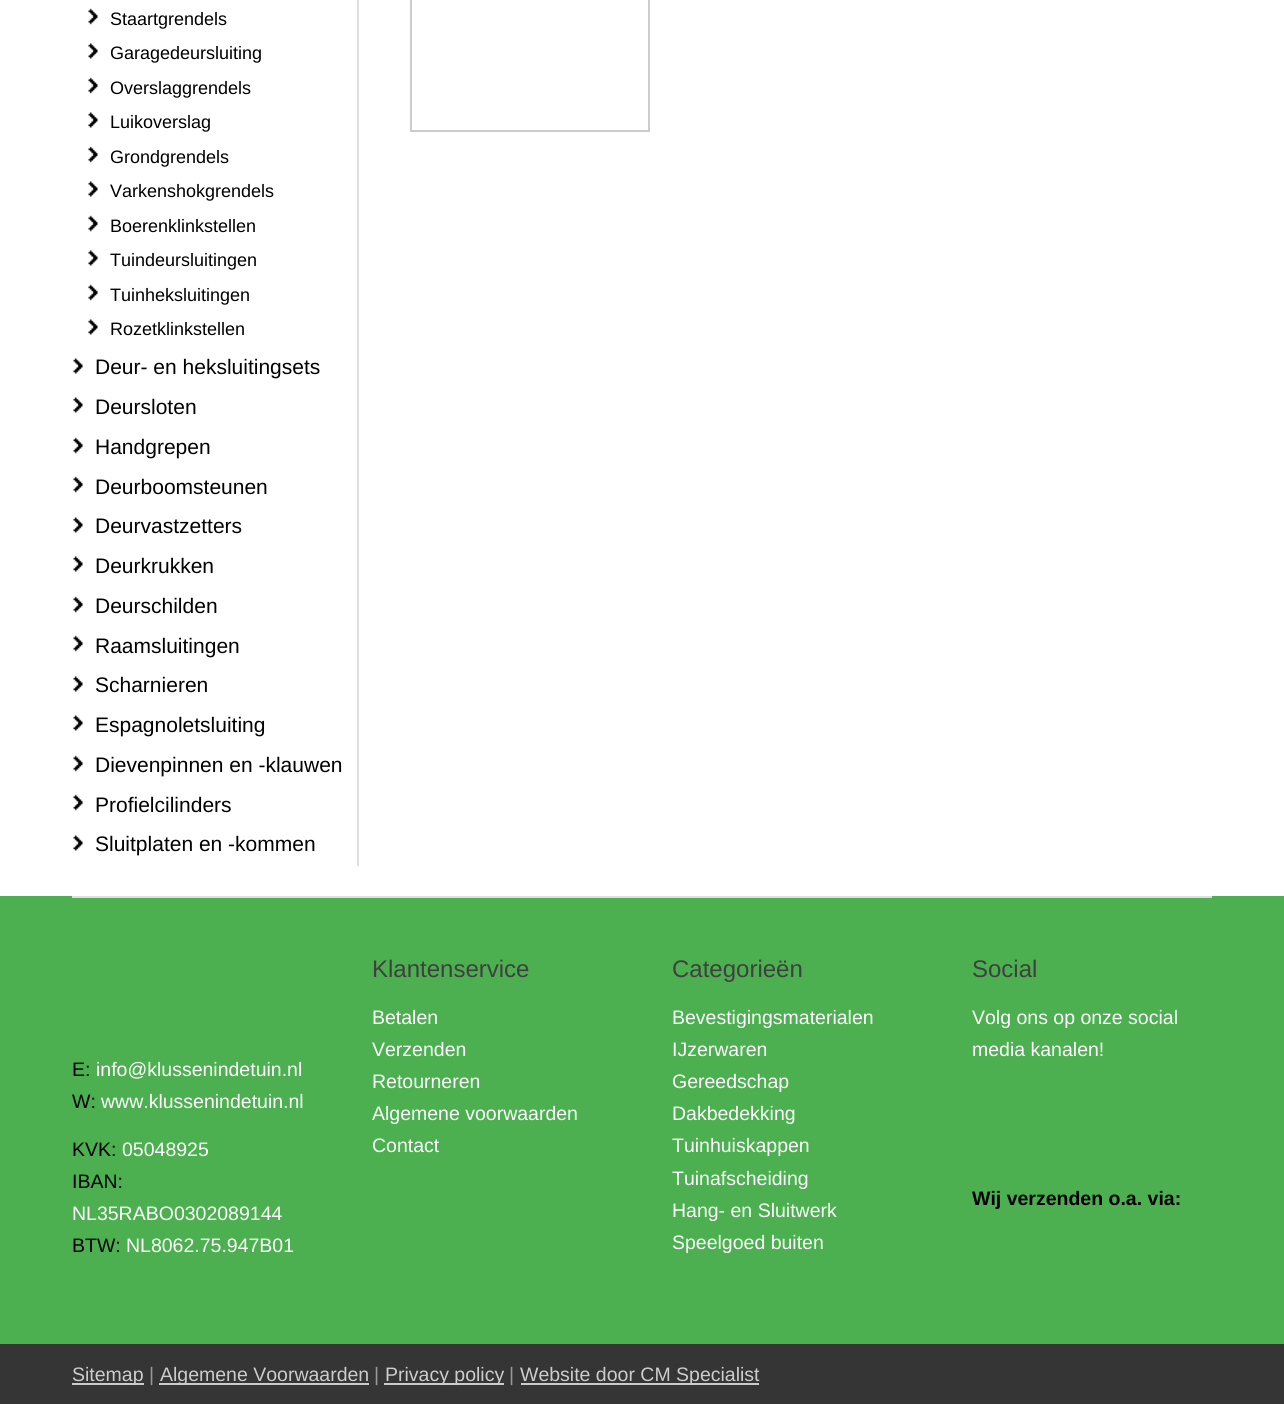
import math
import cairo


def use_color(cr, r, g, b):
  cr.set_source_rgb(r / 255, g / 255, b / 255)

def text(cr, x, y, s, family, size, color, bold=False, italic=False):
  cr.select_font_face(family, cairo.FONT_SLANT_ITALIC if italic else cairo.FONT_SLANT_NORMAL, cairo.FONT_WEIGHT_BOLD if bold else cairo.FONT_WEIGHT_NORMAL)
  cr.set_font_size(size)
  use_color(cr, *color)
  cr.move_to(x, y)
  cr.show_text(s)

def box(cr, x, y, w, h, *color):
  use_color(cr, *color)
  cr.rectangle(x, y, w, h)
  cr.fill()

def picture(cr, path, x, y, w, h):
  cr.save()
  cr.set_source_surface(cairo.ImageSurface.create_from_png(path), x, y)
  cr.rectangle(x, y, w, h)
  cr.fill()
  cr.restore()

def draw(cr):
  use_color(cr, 255, 255, 255)
  cr.paint()
  picture(cr, "img_01.png", 88, 8, 10, 17)
  picture(cr, "img_02.png", 88, 43, 10, 16)
  picture(cr, "img_01.png", 88, 77, 10, 17)
  picture(cr, "img_02.png", 88, 112, 10, 16)
  picture(cr, "img_01.png", 88, 146, 10, 17)
  picture(cr, "img_02.png", 88, 181, 10, 16)
  picture(cr, "img_01.png", 88, 215, 10, 17)
  picture(cr, "img_02.png", 88, 250, 10, 16)
  picture(cr, "img_01.png", 88, 284, 10, 17)
  picture(cr, "img_02.png", 88, 319, 10, 16)
  picture(cr, "img_02.png", 73, 358, 10, 16)
  picture(cr, "img_02.png", 73, 397, 10, 16)
  picture(cr, "img_01.png", 73, 437, 10, 17)
  picture(cr, "img_01.png", 73, 476, 10, 17)
  picture(cr, "img_02.png", 73, 517, 10, 16)
  picture(cr, "img_02.png", 73, 556, 10, 16)
  picture(cr, "img_01.png", 73, 596, 10, 17)
  picture(cr, "img_01.png", 73, 635, 10, 17)
  picture(cr, "img_02.png", 73, 676, 10, 16)
  picture(cr, "img_02.png", 73, 715, 10, 16)
  picture(cr, "img_01.png", 73, 755, 10, 17)
  picture(cr, "img_01.png", 73, 794, 10, 17)
  picture(cr, "img_02.png", 73, 835, 10, 16)
  box(cr, 357, 0, 2, 866, 222, 222, 222)
  cr.rectangle(411, -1, 238, 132)
  use_color(cr, 204, 204, 204)
  cr.stroke()
  box(cr, 0, 896, 1284, 448, 76, 175, 80)
  box(cr, 0, 1344, 1284, 60, 53, 53, 53)
  box(cr, 72, 896, 1140, 2, 222, 222, 222)
  box(cr, 72, 1383, 72, 2, 204, 204, 204)
  box(cr, 159, 1383, 210, 2, 204, 204, 204)
  box(cr, 384, 1383, 120, 2, 204, 204, 204)
  box(cr, 521, 1383, 238, 2, 204, 204, 204)
  text(cr, 110, 25, "Staartgrendels", "Liberation Sans", 18, (0, 0, 0))
  text(cr, 110, 59, "Garagedeursluiting", "Liberation Sans", 18, (0, 0, 0))
  text(cr, 110, 94, "Overslaggrendels", "Liberation Sans", 18, (0, 0, 0))
  text(cr, 110, 128, "Luikoverslag", "Liberation Sans", 18, (0, 0, 0))
  text(cr, 110, 163, "Grondgrendels", "Liberation Sans", 18, (0, 0, 0))
  text(cr, 110, 197, "Varkenshokgrendels", "Liberation Sans", 18, (0, 0, 0))
  text(cr, 110, 232, "Boerenklinkstellen", "Liberation Sans", 18, (0, 0, 0))
  text(cr, 110, 266, "Tuindeursluitingen", "Liberation Sans", 18, (0, 0, 0))
  text(cr, 110, 301, "Tuinheksluitingen", "Liberation Sans", 18, (0, 0, 0))
  text(cr, 110, 335, "Rozetklinkstellen", "Liberation Sans", 18, (0, 0, 0))
  text(cr, 95, 374, "Deur- en heksluitingsets", "Liberation Sans", 21, (0, 0, 0))
  text(cr, 95, 414, "Deursloten", "Liberation Sans", 21, (0, 0, 0))
  text(cr, 95, 454, "Handgrepen", "Liberation Sans", 21, (0, 0, 0))
  text(cr, 95, 494, "Deurboomsteunen", "Liberation Sans", 21, (0, 0, 0))
  text(cr, 95, 533, "Deurvastzetters", "Liberation Sans", 21, (0, 0, 0))
  text(cr, 95, 573, "Deurkrukken", "Liberation Sans", 21, (0, 0, 0))
  text(cr, 95, 613, "Deurschilden", "Liberation Sans", 21, (0, 0, 0))
  text(cr, 95, 653, "Raamsluitingen", "Liberation Sans", 21, (0, 0, 0))
  text(cr, 95, 692, "Scharnieren", "Liberation Sans", 21, (0, 0, 0))
  text(cr, 95, 732, "Espagnoletsluiting", "Liberation Sans", 21, (0, 0, 0))
  text(cr, 95, 772, "Dievenpinnen en -klauwen", "Liberation Sans", 21, (0, 0, 0))
  text(cr, 95, 812, "Profielcilinders", "Liberation Sans", 21, (0, 0, 0))
  text(cr, 95, 851, "Sluitplaten en -kommen", "Liberation Sans", 21, (0, 0, 0))
  text(cr, 72, 1076, "E:", "Liberation Sans", 19.5, (0, 0, 0))
  text(cr, 96, 1076, "info@klussenindetuin.nl", "Liberation Sans", 19.5, (255, 255, 255))
  text(cr, 72, 1108, "W:", "Liberation Sans", 19.5, (0, 0, 0))
  text(cr, 101, 1108, "www.klussenindetuin.nl", "Liberation Sans", 19.5, (255, 255, 255))
  text(cr, 72, 1156, "KVK:", "Liberation Sans", 19.5, (0, 0, 0))
  text(cr, 122, 1156, "05048925", "Liberation Sans", 19.5, (255, 255, 255))
  text(cr, 72, 1188, "IBAN:", "Liberation Sans", 19.5, (0, 0, 0))
  text(cr, 72, 1220, "NL35RABO0302089144", "Liberation Sans", 19.5, (255, 255, 255))
  text(cr, 72, 1252, "BTW:", "Liberation Sans", 19.5, (0, 0, 0))
  text(cr, 126, 1252, "NL8062.75.947B01", "Liberation Sans", 19.5, (255, 255, 255))
  text(cr, 372, 977, "Klantenservice", "Liberation Sans", 24, (64, 64, 64))
  text(cr, 372, 1024, "Betalen", "Liberation Sans", 19.5, (255, 255, 255))
  text(cr, 372, 1056, "Verzenden", "Liberation Sans", 19.5, (255, 255, 255))
  text(cr, 372, 1088, "Retourneren", "Liberation Sans", 19.5, (255, 255, 255))
  text(cr, 372, 1120, "Algemene voorwaarden", "Liberation Sans", 19.5, (255, 255, 255))
  text(cr, 372, 1152, "Contact", "Liberation Sans", 19.5, (255, 255, 255))
  text(cr, 672, 977, "Categorieën", "Liberation Sans", 24, (64, 64, 64))
  text(cr, 672, 1024, "Bevestigingsmaterialen", "Liberation Sans", 19.5, (255, 255, 255))
  text(cr, 672, 1056, "IJzerwaren", "Liberation Sans", 19.5, (255, 255, 255))
  text(cr, 672, 1088, "Gereedschap", "Liberation Sans", 19.5, (255, 255, 255))
  text(cr, 672, 1120, "Dakbedekking", "Liberation Sans", 19.5, (255, 255, 255))
  text(cr, 672, 1152, "Tuinhuiskappen", "Liberation Sans", 19.5, (255, 255, 255))
  text(cr, 672, 1185, "Tuinafscheiding", "Liberation Sans", 19.5, (255, 255, 255))
  text(cr, 672, 1217, "Hang- en Sluitwerk", "Liberation Sans", 19.5, (255, 255, 255))
  text(cr, 672, 1249, "Speelgoed buiten", "Liberation Sans", 19.5, (255, 255, 255))
  text(cr, 972, 977, "Social", "Liberation Sans", 24, (64, 64, 64))
  text(cr, 972, 1024, "Volg ons op onze social", "Liberation Sans", 19.5, (255, 255, 255))
  text(cr, 972, 1056, "media kanalen!", "Liberation Sans", 19.5, (255, 255, 255))
  text(cr, 972, 1205, "Wij verzenden o.a. via:", "Liberation Sans", 19.5, (0, 0, 0), bold=True)
  text(cr, 72, 1381, "Sitemap", "Liberation Sans", 19.5, (204, 204, 204))
  text(cr, 149, 1381, "|", "Liberation Sans", 19.5, (153, 153, 153))
  text(cr, 160, 1381, "Algemene Voorwaarden", "Liberation Sans", 19.5, (204, 204, 204))
  text(cr, 374, 1381, "|", "Liberation Sans", 19.5, (153, 153, 153))
  text(cr, 385, 1381, "Privacy policy", "Liberation Sans", 19.5, (204, 204, 204))
  text(cr, 509, 1381, "|", "Liberation Sans", 19.5, (153, 153, 153))
  text(cr, 520, 1381, "Website door CM Specialist", "Liberation Sans", 19.5, (204, 204, 204))


surface = cairo.ImageSurface(cairo.FORMAT_RGB24, 1284, 1419)
cr = cairo.Context(surface)
options = cairo.FontOptions()
options.set_hint_metrics(cairo.HINT_METRICS_OFF)
options.set_hint_style(cairo.HINT_STYLE_NONE)
cr.set_font_options(options)
cr.set_miter_limit(4)
draw(cr)
surface.write_to_png("out.png")
